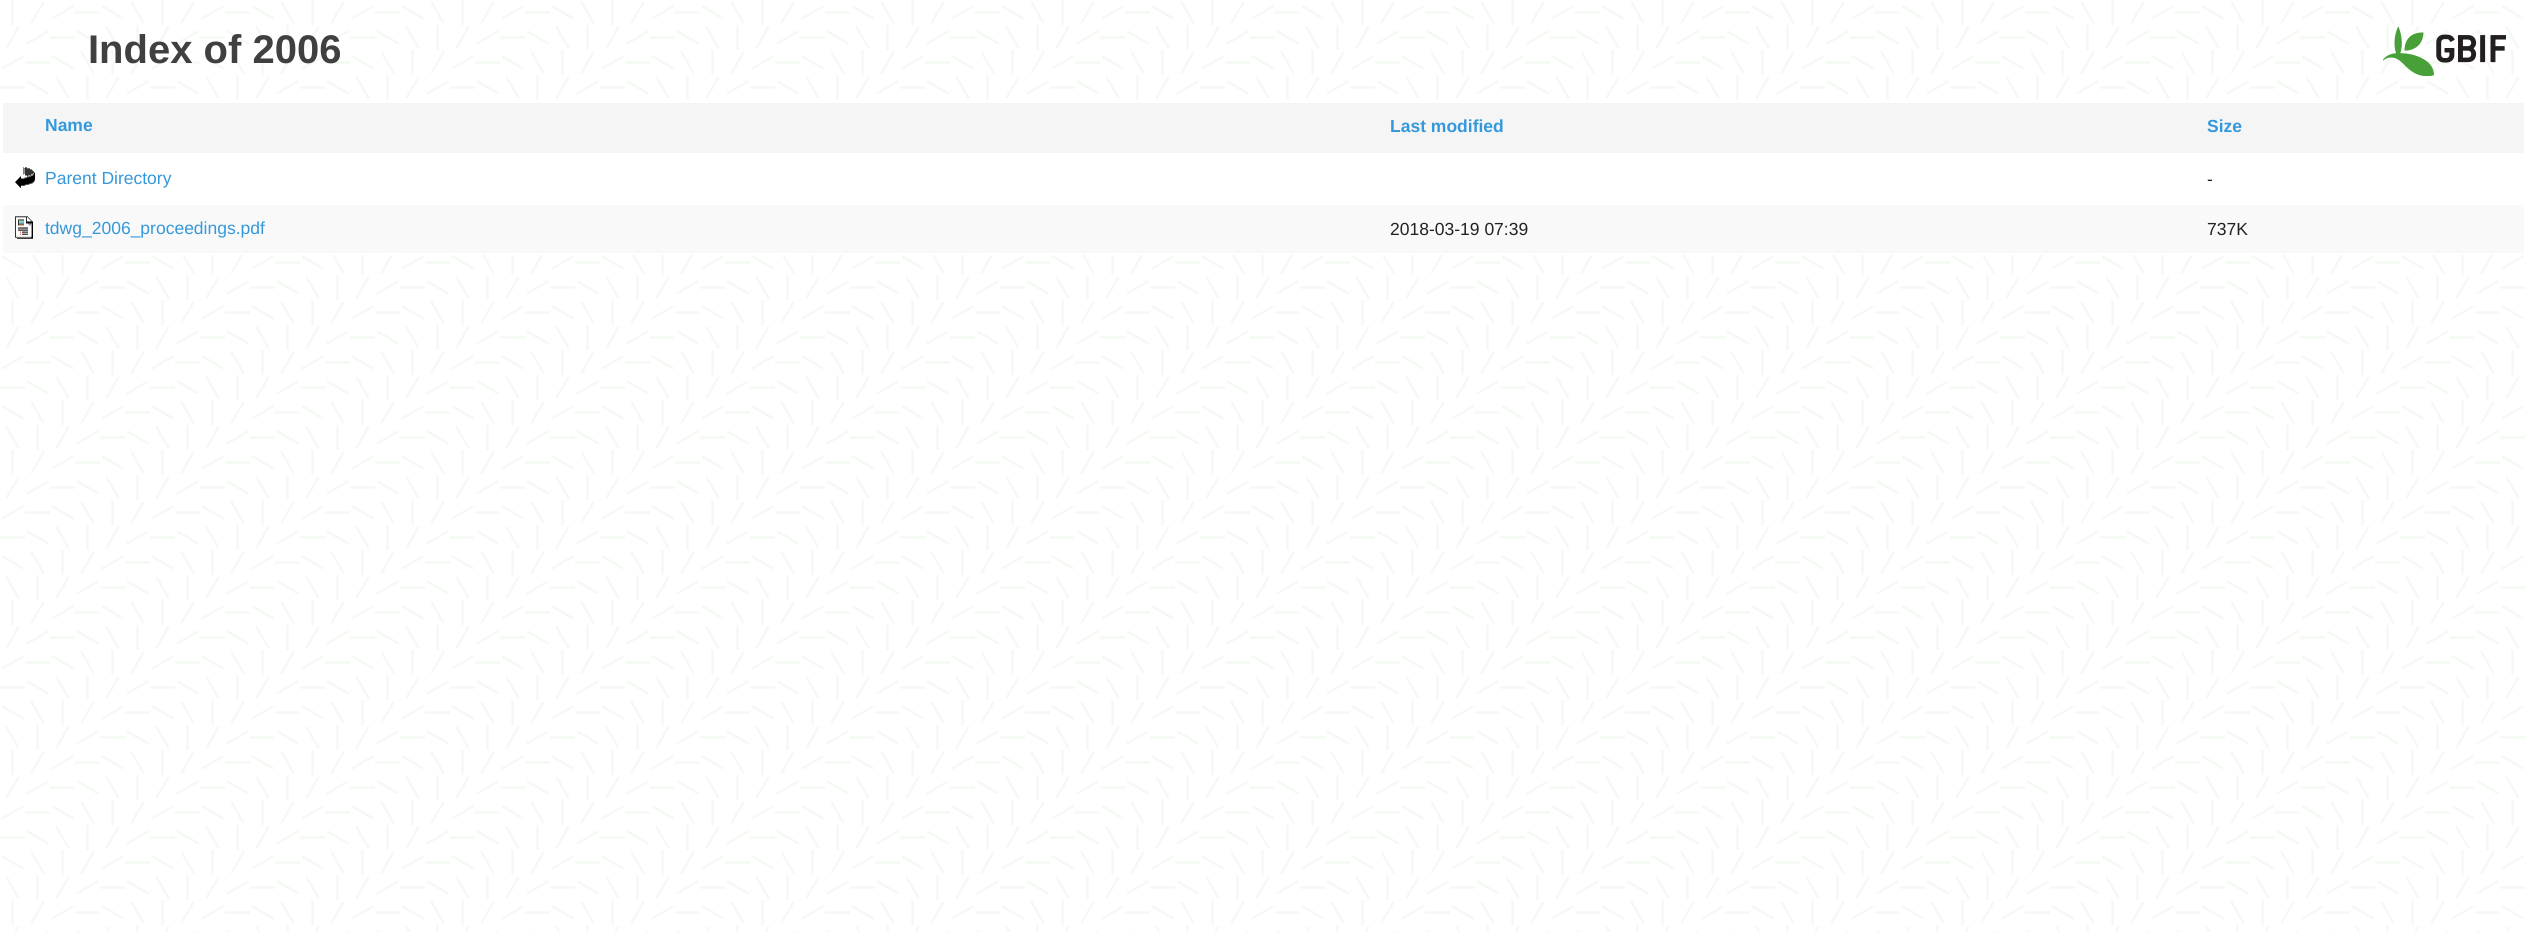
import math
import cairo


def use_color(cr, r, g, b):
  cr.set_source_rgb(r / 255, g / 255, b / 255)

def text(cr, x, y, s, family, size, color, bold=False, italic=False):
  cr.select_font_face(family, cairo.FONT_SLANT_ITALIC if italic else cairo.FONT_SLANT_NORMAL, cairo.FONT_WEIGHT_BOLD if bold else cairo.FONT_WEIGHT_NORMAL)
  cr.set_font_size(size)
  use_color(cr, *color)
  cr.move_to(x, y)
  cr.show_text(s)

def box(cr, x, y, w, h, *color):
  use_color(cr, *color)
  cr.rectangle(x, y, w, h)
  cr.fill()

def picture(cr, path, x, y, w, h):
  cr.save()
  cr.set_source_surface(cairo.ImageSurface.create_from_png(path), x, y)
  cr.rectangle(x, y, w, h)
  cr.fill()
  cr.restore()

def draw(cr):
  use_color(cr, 255, 255, 255)
  cr.paint()
  picture(cr, "img_01.png", 0, 0, 2526, 932)
  picture(cr, "img_02.png", 2383, 26, 123, 50)
  box(cr, 0, 100, 2526, 155, 255, 255, 255)
  box(cr, 3, 103, 2521, 50, 245, 245, 245)
  picture(cr, "img_03.png", 15, 167, 20, 21)
  box(cr, 3, 205, 2521, 48, 249, 249, 249)
  picture(cr, "img_04.png", 15, 216, 18, 23)
  text(cr, 88, 63, "Index of 2006", "Liberation Sans", 40, (64, 64, 64), bold=True)
  text(cr, 45, 131, "Name", "Liberation Sans", 17.5, (52, 152, 219), bold=True)
  text(cr, 1390, 132, "Last modified", "Liberation Sans", 17.5, (52, 152, 219), bold=True)
  text(cr, 2207, 132, "Size", "Liberation Sans", 17.5, (52, 152, 219), bold=True)
  text(cr, 45, 184, "Parent Directory", "Liberation Sans", 17.5, (52, 152, 219))
  text(cr, 2207, 185, "-", "Liberation Sans", 17.5, (34, 34, 34))
  text(cr, 45, 234, "tdwg_2006_proceedings.pdf", "Liberation Sans", 17.5, (52, 152, 219))
  text(cr, 1390, 235, "2018-03-19 07:39", "Liberation Sans", 17.5, (34, 34, 34))
  text(cr, 2207, 235, "737K", "Liberation Sans", 17.5, (34, 34, 34))


surface = cairo.ImageSurface(cairo.FORMAT_RGB24, 2526, 932)
cr = cairo.Context(surface)
options = cairo.FontOptions()
options.set_hint_metrics(cairo.HINT_METRICS_OFF)
options.set_hint_style(cairo.HINT_STYLE_NONE)
cr.set_font_options(options)
cr.set_miter_limit(4)
draw(cr)
surface.write_to_png("out.png")
